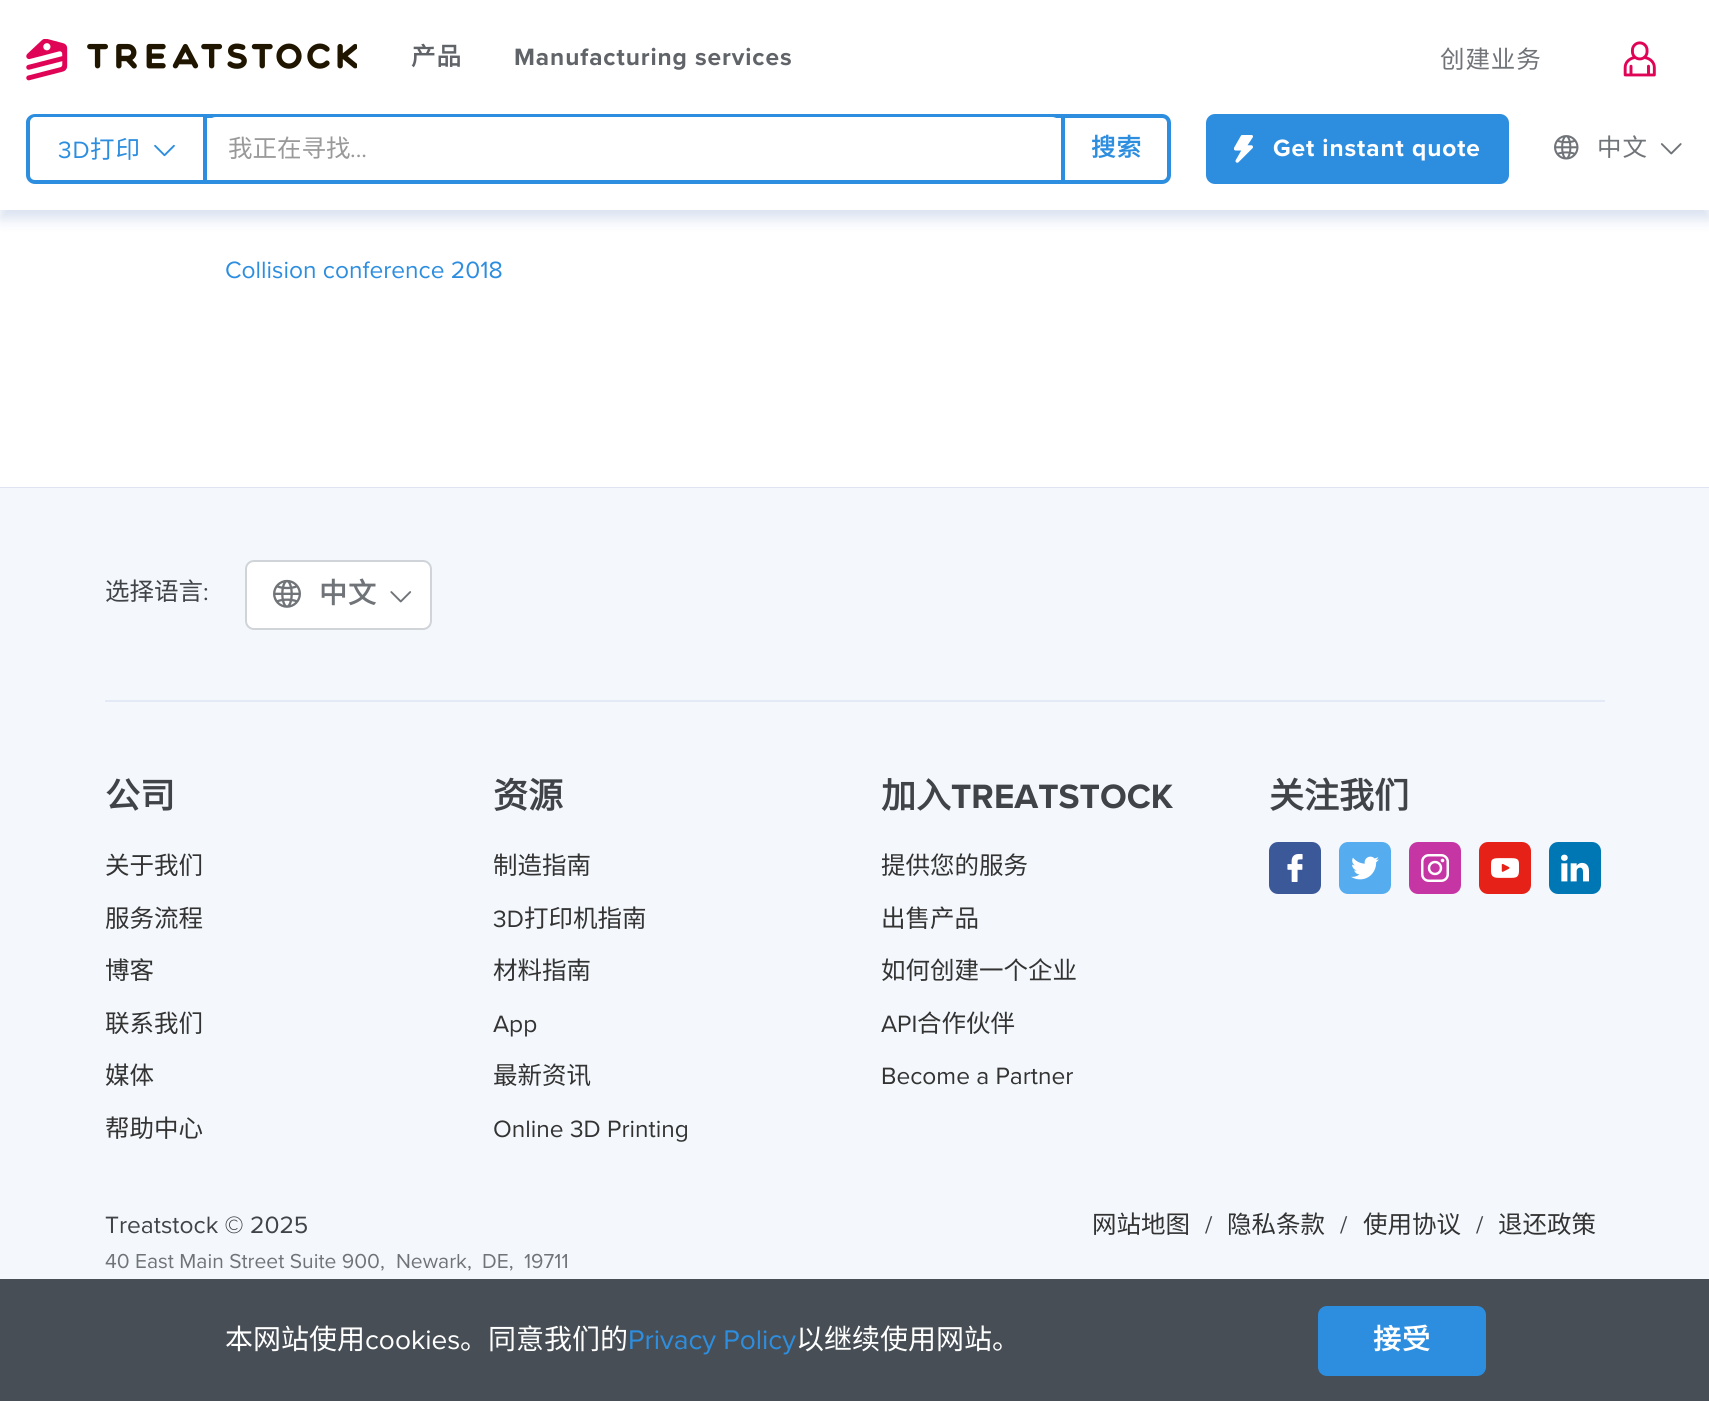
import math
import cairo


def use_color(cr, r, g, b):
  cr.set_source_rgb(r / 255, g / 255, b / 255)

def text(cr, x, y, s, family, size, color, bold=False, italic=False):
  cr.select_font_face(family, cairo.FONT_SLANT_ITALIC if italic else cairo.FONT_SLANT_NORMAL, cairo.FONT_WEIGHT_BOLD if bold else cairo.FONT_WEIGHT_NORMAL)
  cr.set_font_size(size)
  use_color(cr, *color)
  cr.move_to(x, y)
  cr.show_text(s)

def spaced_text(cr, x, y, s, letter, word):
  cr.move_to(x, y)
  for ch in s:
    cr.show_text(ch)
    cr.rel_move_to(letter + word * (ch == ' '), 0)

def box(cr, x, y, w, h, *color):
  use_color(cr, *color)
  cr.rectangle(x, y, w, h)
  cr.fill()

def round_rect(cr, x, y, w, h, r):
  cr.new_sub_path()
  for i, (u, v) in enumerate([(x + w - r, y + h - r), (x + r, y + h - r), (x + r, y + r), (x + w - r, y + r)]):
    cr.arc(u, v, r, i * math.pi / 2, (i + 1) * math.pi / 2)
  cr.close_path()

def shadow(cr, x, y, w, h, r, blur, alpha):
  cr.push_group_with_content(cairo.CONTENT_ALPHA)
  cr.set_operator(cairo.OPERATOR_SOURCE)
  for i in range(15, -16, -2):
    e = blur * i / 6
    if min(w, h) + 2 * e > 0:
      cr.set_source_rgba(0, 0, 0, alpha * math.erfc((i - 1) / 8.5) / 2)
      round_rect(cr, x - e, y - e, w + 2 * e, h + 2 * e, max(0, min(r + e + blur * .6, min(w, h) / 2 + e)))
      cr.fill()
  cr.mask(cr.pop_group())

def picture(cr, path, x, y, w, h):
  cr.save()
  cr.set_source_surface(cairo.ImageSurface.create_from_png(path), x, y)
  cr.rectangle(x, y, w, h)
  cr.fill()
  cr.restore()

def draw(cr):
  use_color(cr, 255, 255, 255)
  cr.paint()
  use_color(cr, 0, 54, 153)
  shadow(cr, 0, 9, 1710, 210, 0, 7, 0.15)
  box(cr, 0, 0, 1709, 210, 255, 255, 255)
  picture(cr, "img_01.png", 26, 39, 331, 42)
  picture(cr, "img_02.png", 1623, 41, 33, 36)
  use_color(cr, 45, 142, 224)
  cr.set_fill_rule(cairo.FILL_RULE_EVEN_ODD)
  cr.new_path()
  cr.move_to(35, 114)
  cr.line_to(203, 114)
  cr.line_to(203, 184)
  cr.line_to(35, 184)
  cr.curve_to(30, 184, 26, 180, 26, 175)
  cr.line_to(26, 122)
  cr.curve_to(26, 118, 30, 114, 35, 114)
  cr.close_path()
  cr.move_to(35, 117)
  cr.line_to(203, 117)
  cr.line_to(203, 180)
  cr.line_to(35, 180)
  cr.curve_to(32, 180, 30, 178, 30, 175)
  cr.line_to(30, 122)
  cr.curve_to(30, 120, 32, 117, 35, 117)
  cr.close_path()
  cr.fill()
  picture(cr, "img_03.png", 154, 144, 21, 13)
  box(cr, 203, 114, 858, 4, 45, 142, 224)
  box(cr, 203, 180, 858, 4, 45, 142, 224)
  box(cr, 203, 114, 4, 70, 45, 142, 224)
  use_color(cr, 255, 255, 255)
  round_rect(cr, 207, 117, 854, 63, 9)
  cr.fill()
  cr.new_path()
  cr.move_to(1063, 116)
  cr.line_to(1162, 116)
  cr.curve_to(1166, 116, 1169, 119, 1169, 123)
  cr.line_to(1169, 175)
  cr.curve_to(1169, 179, 1166, 182, 1162, 182)
  cr.line_to(1063, 182)
  cr.close_path()
  use_color(cr, 45, 142, 224)
  cr.set_line_width(4)
  cr.stroke()
  round_rect(cr, 1207, 115, 301, 68, 8)
  cr.fill_preserve()
  cr.set_line_width(2)
  cr.stroke()
  picture(cr, "img_04.png", 1234, 135, 19, 28)
  picture(cr, "img_05.png", 1554, 135, 25, 25)
  picture(cr, "img_06.png", 1660, 143, 22, 12)
  use_color(cr, 223, 227, 242)
  cr.set_fill_rule(cairo.FILL_RULE_WINDING)
  cr.new_path()
  cr.move_to(0, 487)
  cr.line_to(0, 488)
  cr.line_to(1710, 488)
  cr.line_to(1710, 1400)
  cr.line_to(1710, 487)
  cr.close_path()
  cr.fill()
  box(cr, 0, 488, 1709, 791, 244, 248, 252)
  box(cr, 0, 1279, 1709, 122, 71, 78, 85)
  use_color(cr, 255, 255, 255)
  round_rect(cr, 246, 561, 185, 68, 8)
  cr.fill_preserve()
  use_color(cr, 208, 212, 216)
  cr.stroke()
  picture(cr, "img_07.png", 273, 579, 28, 29)
  picture(cr, "img_08.png", 390, 591, 22, 12)
  box(cr, 105, 700, 1500, 2, 227, 234, 245)
  use_color(cr, 59, 89, 152)
  round_rect(cr, 1269, 842, 52, 52, 9)
  cr.fill()
  picture(cr, "img_09.png", 1287, 854, 16, 28)
  use_color(cr, 85, 172, 238)
  round_rect(cr, 1339, 842, 52, 52, 9)
  cr.fill()
  picture(cr, "img_10.png", 1351, 856, 28, 24)
  use_color(cr, 197, 54, 164)
  round_rect(cr, 1409, 842, 52, 52, 9)
  cr.fill()
  picture(cr, "img_11.png", 1421, 854, 28, 28)
  use_color(cr, 230, 33, 23)
  round_rect(cr, 1479, 842, 52, 52, 9)
  cr.fill()
  picture(cr, "img_12.png", 1491, 858, 28, 20)
  use_color(cr, 0, 119, 181)
  round_rect(cr, 1549, 842, 52, 52, 9)
  cr.fill()
  picture(cr, "img_13.png", 1561, 854, 28, 28)
  use_color(cr, 45, 142, 224)
  round_rect(cr, 1319, 1307, 166, 68, 8)
  cr.fill_preserve()
  cr.stroke()
  cr.select_font_face("Noto Sans CJK SC", cairo.FONT_SLANT_NORMAL, cairo.FONT_WEIGHT_BOLD)
  cr.set_font_size(24.5)
  use_color(cr, 96, 100, 104)
  spaced_text(cr, 411, 65, "产品", 1, 0)
  cr.select_font_face("Proxima Nova", cairo.FONT_SLANT_NORMAL, cairo.FONT_WEIGHT_BOLD)
  spaced_text(cr, 514, 65, "Manufacturing services", 0.9, 0)
  cr.select_font_face("Noto Sans CJK SC")
  use_color(cr, 112, 116, 120)
  spaced_text(cr, 1440, 68, "创建业务", 0.9, 0)
  cr.select_font_face("Proxima Nova")
  use_color(cr, 45, 142, 224)
  spaced_text(cr, 58, 158, "3D", 0.9, 0)
  cr.select_font_face("Noto Sans CJK SC")
  spaced_text(cr, 90, 158, "打印", 0.9, 0)
  text(cr, 228, 157, "我正在寻找", "Noto Sans CJK SC", 24.5, (153, 153, 153))
  text(cr, 350, 157, "...", "Proxima Nova", 24.5, (153, 153, 153))
  cr.select_font_face("Noto Sans CJK SC", cairo.FONT_SLANT_NORMAL, cairo.FONT_WEIGHT_BOLD)
  use_color(cr, 45, 142, 224)
  spaced_text(cr, 1091, 156, "搜索", 0.9, 0)
  cr.select_font_face("Proxima Nova", cairo.FONT_SLANT_NORMAL, cairo.FONT_WEIGHT_BOLD)
  use_color(cr, 255, 255, 255)
  spaced_text(cr, 1273, 156, "Get instant quote", 0.9, 0)
  cr.select_font_face("Noto Sans CJK SC")
  use_color(cr, 112, 116, 120)
  spaced_text(cr, 1597, 156, "中文", 0.9, 0)
  text(cr, 225, 278, "Collision conference 2018", "Proxima Nova", 24.5, (45, 142, 224))
  text(cr, 105, 600, "选择语言", "Noto Sans CJK SC", 24.5, (64, 68, 72))
  text(cr, 203, 600, ":", "Proxima Nova", 24.5, (64, 68, 72))
  cr.select_font_face("Noto Sans CJK SC", cairo.FONT_SLANT_NORMAL, cairo.FONT_WEIGHT_BOLD)
  cr.set_font_size(28)
  use_color(cr, 112, 116, 120)
  spaced_text(cr, 319, 603, "中文", 0.9, 0)
  text(cr, 105, 808, "公司", "Noto Sans CJK SC", 35, (64, 68, 72), bold=True)
  text(cr, 105, 874, "关于我们", "Noto Sans CJK SC", 24.5, (51, 51, 51))
  text(cr, 105, 927, "服务流程", "Noto Sans CJK SC", 24.5, (51, 51, 51))
  text(cr, 105, 979, "博客", "Noto Sans CJK SC", 24.5, (51, 51, 51))
  text(cr, 105, 1032, "联系我们", "Noto Sans CJK SC", 24.5, (51, 51, 51))
  text(cr, 105, 1084, "媒体", "Noto Sans CJK SC", 24.5, (51, 51, 51))
  text(cr, 105, 1137, "帮助中心", "Noto Sans CJK SC", 24.5, (51, 51, 51))
  text(cr, 493, 808, "资源", "Noto Sans CJK SC", 35, (64, 68, 72), bold=True)
  text(cr, 493, 874, "制造指南", "Noto Sans CJK SC", 24.5, (51, 51, 51))
  text(cr, 493, 927, "3D", "Proxima Nova", 24.5, (51, 51, 51))
  text(cr, 524, 927, "打印机指南", "Noto Sans CJK SC", 24.5, (51, 51, 51))
  text(cr, 493, 979, "材料指南", "Noto Sans CJK SC", 24.5, (51, 51, 51))
  text(cr, 493, 1032, "App", "Proxima Nova", 24.5, (51, 51, 51))
  text(cr, 493, 1084, "最新资讯", "Noto Sans CJK SC", 24.5, (51, 51, 51))
  text(cr, 493, 1137, "Online 3D Printing", "Proxima Nova", 24.5, (51, 51, 51))
  text(cr, 881, 808, "加入", "Noto Sans CJK SC", 35, (64, 68, 72), bold=True)
  text(cr, 951, 808, "TREATSTOCK", "Proxima Nova", 35, (64, 68, 72), bold=True)
  text(cr, 881, 874, "提供您的服务", "Noto Sans CJK SC", 24.5, (51, 51, 51))
  text(cr, 881, 927, "出售产品", "Noto Sans CJK SC", 24.5, (51, 51, 51))
  text(cr, 881, 979, "如何创建一个企业", "Noto Sans CJK SC", 24.5, (51, 51, 51))
  text(cr, 881, 1032, "API", "Proxima Nova", 24.5, (51, 51, 51))
  text(cr, 917, 1032, "合作伙伴", "Noto Sans CJK SC", 24.5, (51, 51, 51))
  text(cr, 881, 1084, "Become a Partner", "Proxima Nova", 24.5, (51, 51, 51))
  text(cr, 1269, 808, "关注我们", "Noto Sans CJK SC", 35, (64, 68, 72), bold=True)
  text(cr, 105, 1233, "Treatstock © 2025", "Proxima Nova", 24.5, (64, 68, 72))
  text(cr, 105, 1268, "40 East Main Street Suite 900,", "Proxima Nova", 21, (112, 116, 120))
  text(cr, 396, 1268, "Newark,", "Proxima Nova", 21, (112, 116, 120))
  text(cr, 482, 1268, "DE,", "Proxima Nova", 21, (112, 116, 120))
  text(cr, 524, 1268, "19711", "Proxima Nova", 21, (112, 116, 120))
  text(cr, 1092, 1233, "网站地图", "Noto Sans CJK SC", 24.5, (51, 51, 51))
  text(cr, 1205, 1233, "/", "Proxima Nova", 24.5, (64, 68, 72))
  text(cr, 1227, 1233, "隐私条款", "Noto Sans CJK SC", 24.5, (51, 51, 51))
  text(cr, 1340, 1233, "/", "Proxima Nova", 24.5, (64, 68, 72))
  text(cr, 1363, 1233, "使用协议", "Noto Sans CJK SC", 24.5, (51, 51, 51))
  text(cr, 1476, 1233, "/", "Proxima Nova", 24.5, (64, 68, 72))
  text(cr, 1498, 1233, "退还政策", "Noto Sans CJK SC", 24.5, (51, 51, 51))
  text(cr, 225, 1349, "本网站使用", "Noto Sans CJK SC", 28, (255, 255, 255))
  text(cr, 365, 1349, "cookies", "Proxima Nova", 28, (255, 255, 255))
  text(cr, 460, 1349, "。同意我们的", "Noto Sans CJK SC", 28, (255, 255, 255))
  text(cr, 628, 1349, "Privacy Policy", "Proxima Nova", 28, (45, 142, 224))
  text(cr, 796, 1349, "以继续使用网站。", "Noto Sans CJK SC", 28, (255, 255, 255))
  cr.select_font_face("Noto Sans CJK SC", cairo.FONT_SLANT_NORMAL, cairo.FONT_WEIGHT_BOLD)
  spaced_text(cr, 1373, 1349, "接受", 0.9, 0)


surface = cairo.ImageSurface(cairo.FORMAT_RGB24, 1709, 1401)
cr = cairo.Context(surface)
options = cairo.FontOptions()
options.set_hint_metrics(cairo.HINT_METRICS_OFF)
options.set_hint_style(cairo.HINT_STYLE_NONE)
cr.set_font_options(options)
cr.set_miter_limit(4)
draw(cr)
surface.write_to_png("out.png")
